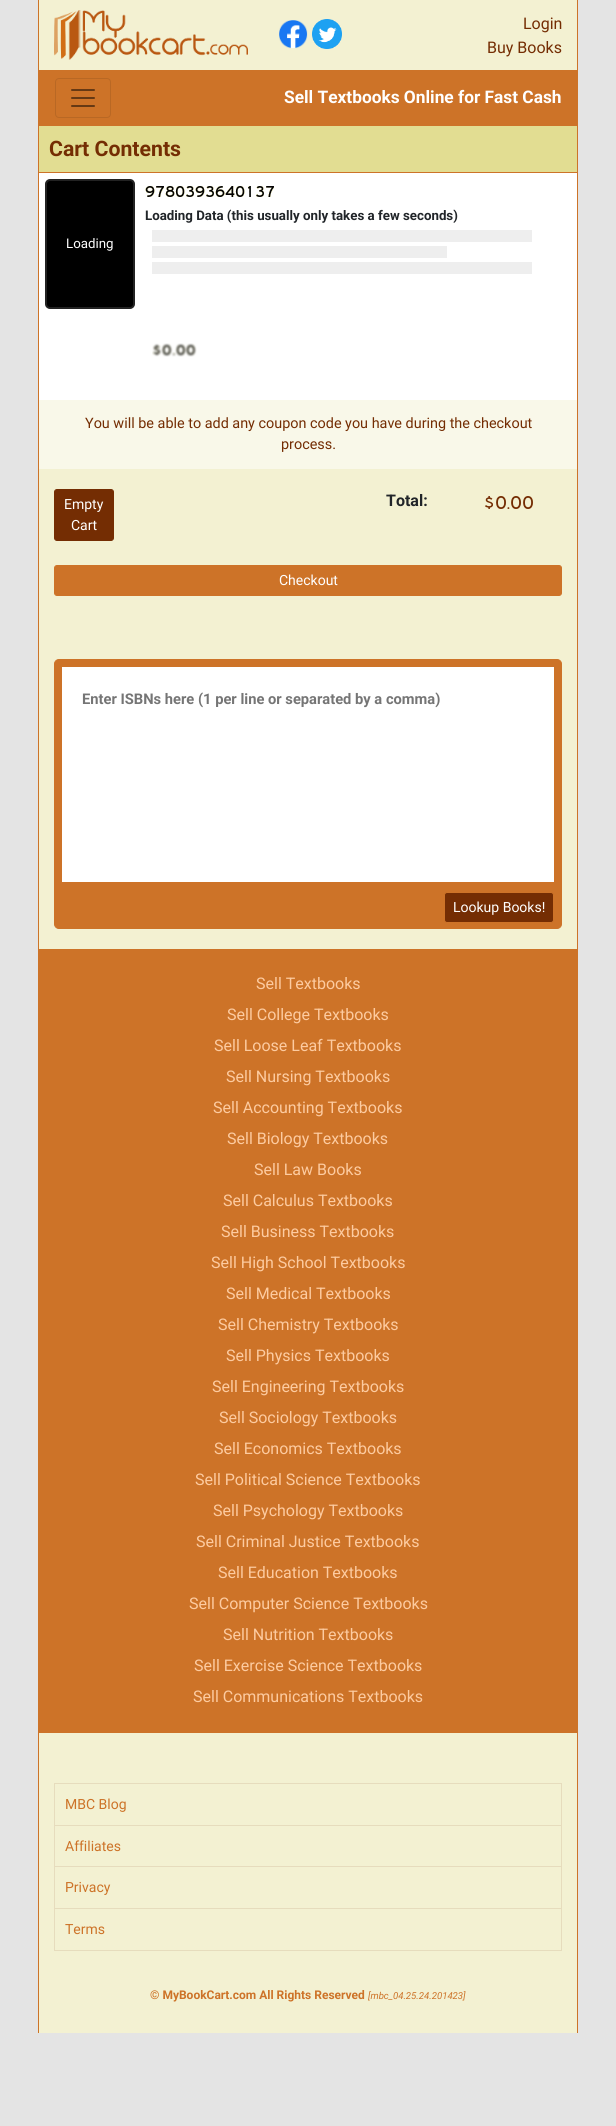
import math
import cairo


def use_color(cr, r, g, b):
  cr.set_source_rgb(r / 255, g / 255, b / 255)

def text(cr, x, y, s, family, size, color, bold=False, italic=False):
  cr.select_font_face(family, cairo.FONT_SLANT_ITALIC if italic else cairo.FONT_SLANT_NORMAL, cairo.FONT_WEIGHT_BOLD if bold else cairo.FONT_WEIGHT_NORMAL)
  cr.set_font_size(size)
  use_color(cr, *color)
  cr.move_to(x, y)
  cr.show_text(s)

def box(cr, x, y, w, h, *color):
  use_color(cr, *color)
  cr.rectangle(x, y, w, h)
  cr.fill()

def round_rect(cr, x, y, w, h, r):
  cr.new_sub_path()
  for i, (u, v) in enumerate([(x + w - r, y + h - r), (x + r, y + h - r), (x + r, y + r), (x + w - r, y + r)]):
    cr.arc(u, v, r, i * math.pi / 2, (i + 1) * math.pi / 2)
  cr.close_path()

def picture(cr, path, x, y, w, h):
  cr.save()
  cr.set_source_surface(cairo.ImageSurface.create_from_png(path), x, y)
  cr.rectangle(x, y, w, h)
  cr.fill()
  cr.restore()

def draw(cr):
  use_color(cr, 228, 228, 228)
  cr.paint()
  box(cr, 39, 0, 538, 2033, 243, 241, 210)
  box(cr, 577, 0, 1, 2033, 205, 115, 40)
  box(cr, 38, 0, 1, 2033, 205, 115, 40)
  picture(cr, "img_01.png", 54, 10, 194, 50)
  picture(cr, "img_02.png", 279, 20, 29, 29)
  picture(cr, "img_03.png", 312, 19, 30, 30)
  box(cr, 39, 70, 538, 56, 205, 115, 40)
  round_rect(cr, 55.5, 78.5, 55, 39, 3.5)
  use_color(cr, 185, 104, 36)
  cr.set_line_width(1)
  cr.stroke()
  picture(cr, "img_04.png", 71, 89, 24, 18)
  box(cr, 39, 126, 538, 46, 226, 221, 146)
  box(cr, 39, 172, 538, 1, 205, 115, 40)
  box(cr, 39, 173, 538, 227, 255, 255, 255)
  picture(cr, "img_05.png", 145, 186, 129, 11)
  use_color(cr, 0, 0, 0)
  round_rect(cr, 46, 180, 88, 128, 4)
  cr.fill_preserve()
  use_color(cr, 34, 34, 34)
  cr.set_line_width(2)
  cr.stroke()
  box(cr, 152, 230, 380, 12, 238, 238, 238)
  box(cr, 152, 246, 295, 12, 238, 238, 238)
  box(cr, 152, 262, 380, 12, 238, 238, 238)
  picture(cr, "img_06.png", 152, 343, 45, 14)
  box(cr, 39, 400, 538, 69, 249, 248, 233)
  use_color(cr, 116, 45, 3)
  round_rect(cr, 54.5, 489.5, 59, 51, 2.5)
  cr.fill_preserve()
  cr.set_line_width(1)
  cr.stroke()
  picture(cr, "img_07.png", 485, 496, 48, 13)
  use_color(cr, 205, 115, 40)
  round_rect(cr, 54.5, 565.5, 507, 30, 2.5)
  cr.fill_preserve()
  cr.stroke()
  round_rect(cr, 54.5, 659.5, 507, 269, 4.5)
  cr.fill_preserve()
  cr.stroke()
  box(cr, 62, 667, 492, 215, 255, 255, 255)
  use_color(cr, 116, 45, 3)
  round_rect(cr, 444.5, 892.5, 109, 30, 2.5)
  cr.fill_preserve()
  use_color(cr, 205, 115, 40)
  cr.stroke()
  box(cr, 39, 949, 538, 784, 205, 115, 40)
  cr.rectangle(54.5, 1783.5, 507, 167)
  use_color(cr, 230, 220, 189)
  cr.stroke()
  box(cr, 55, 1825, 506, 1, 230, 220, 189)
  box(cr, 55, 1866, 506, 1, 230, 220, 189)
  box(cr, 55, 1908, 506, 1, 230, 220, 189)
  text(cr, 523, 29, "Login", "Roboto", 16, (116, 45, 3))
  text(cr, 487, 53, "Buy Books", "Roboto", 16, (116, 45, 3))
  text(cr, 284, 103, "Sell Textbooks Online for Fast Cash", "Roboto", 17.3, (255, 255, 255), bold=True)
  text(cr, 49, 156, "Cart Contents", "Roboto", 21.25, (116, 45, 3), bold=True)
  text(cr, 145, 220, "Loading Data (this usually only takes a few seconds)", "Roboto", 13.3, (33, 37, 41), bold=True)
  text(cr, 66, 248, "Loading", "Roboto", 13.3, (255, 255, 255))
  text(cr, 85, 428, "You will be able to add any coupon code you have during the checkout", "Roboto", 14.4, (116, 45, 3))
  text(cr, 281, 449, "process.", "Roboto", 14.4, (116, 45, 3))
  text(cr, 64, 509, "Empty", "Roboto", 14, (255, 255, 255))
  text(cr, 71, 530, "Cart", "Roboto", 14, (255, 255, 255))
  text(cr, 386, 506, "Total:", "Roboto", 16, (33, 37, 41), bold=True)
  text(cr, 279, 585, "Checkout", "Roboto", 14, (255, 255, 255))
  text(cr, 82, 704, "Enter ISBNs here (1 per line or separated by a comma)", "Roboto", 14.7, (117, 117, 117), bold=True)
  text(cr, 453, 912, "Lookup Books!", "Roboto", 14, (255, 255, 255))
  text(cr, 256, 989, "Sell Textbooks", "Roboto", 16, (253, 203, 160))
  text(cr, 227, 1020, "Sell College Textbooks", "Roboto", 16, (253, 203, 160))
  text(cr, 214, 1051, "Sell Loose Leaf Textbooks", "Roboto", 16, (253, 203, 160))
  text(cr, 226, 1082, "Sell Nursing Textbooks", "Roboto", 16, (253, 203, 160))
  text(cr, 213, 1113, "Sell Accounting Textbooks", "Roboto", 16, (253, 203, 160))
  text(cr, 227, 1144, "Sell Biology Textbooks", "Roboto", 16, (253, 203, 160))
  text(cr, 254, 1175, "Sell Law Books", "Roboto", 16, (253, 203, 160))
  text(cr, 223, 1206, "Sell Calculus Textbooks", "Roboto", 16, (253, 203, 160))
  text(cr, 221, 1237, "Sell Business Textbooks", "Roboto", 16, (253, 203, 160))
  text(cr, 211, 1268, "Sell High School Textbooks", "Roboto", 16, (253, 203, 160))
  text(cr, 226, 1299, "Sell Medical Textbooks", "Roboto", 16, (253, 203, 160))
  text(cr, 218, 1330, "Sell Chemistry Textbooks", "Roboto", 16, (253, 203, 160))
  text(cr, 226, 1361, "Sell Physics Textbooks", "Roboto", 16, (253, 203, 160))
  text(cr, 212, 1392, "Sell Engineering Textbooks", "Roboto", 16, (253, 203, 160))
  text(cr, 219, 1423, "Sell Sociology Textbooks", "Roboto", 16, (253, 203, 160))
  text(cr, 214, 1454, "Sell Economics Textbooks", "Roboto", 16, (253, 203, 160))
  text(cr, 195, 1485, "Sell Political Science Textbooks", "Roboto", 16, (253, 203, 160))
  text(cr, 213, 1516, "Sell Psychology Textbooks", "Roboto", 16, (253, 203, 160))
  text(cr, 196, 1547, "Sell Criminal Justice Textbooks", "Roboto", 16, (253, 203, 160))
  text(cr, 218, 1578, "Sell Education Textbooks", "Roboto", 16, (253, 203, 160))
  text(cr, 189, 1609, "Sell Computer Science Textbooks", "Roboto", 16, (253, 203, 160))
  text(cr, 223, 1640, "Sell Nutrition Textbooks", "Roboto", 16, (253, 203, 160))
  text(cr, 194, 1671, "Sell Exercise Science Textbooks", "Roboto", 16, (253, 203, 160))
  text(cr, 193, 1702, "Sell Communications Textbooks", "Roboto", 16, (253, 203, 160))
  text(cr, 65, 1809, "MBC Blog", "Roboto", 14, (205, 115, 40))
  text(cr, 65, 1851, "Affiliates", "Roboto", 14, (205, 115, 40))
  text(cr, 65, 1892, "Privacy", "Roboto", 14, (205, 115, 40))
  text(cr, 65, 1934, "Terms", "Roboto", 14, (205, 115, 40))
  text(cr, 150, 1999, "© MyBookCart.com All Rights Reserved", "Roboto", 12, (205, 115, 40), bold=True)
  text(cr, 368, 1999, "[mbc_04.25.24.201423]", "Roboto", 9.6, (205, 115, 40), italic=True)


surface = cairo.ImageSurface(cairo.FORMAT_RGB24, 616, 2126)
cr = cairo.Context(surface)
options = cairo.FontOptions()
options.set_hint_metrics(cairo.HINT_METRICS_OFF)
options.set_hint_style(cairo.HINT_STYLE_NONE)
cr.set_font_options(options)
cr.set_miter_limit(4)
draw(cr)
surface.write_to_png("out.png")
